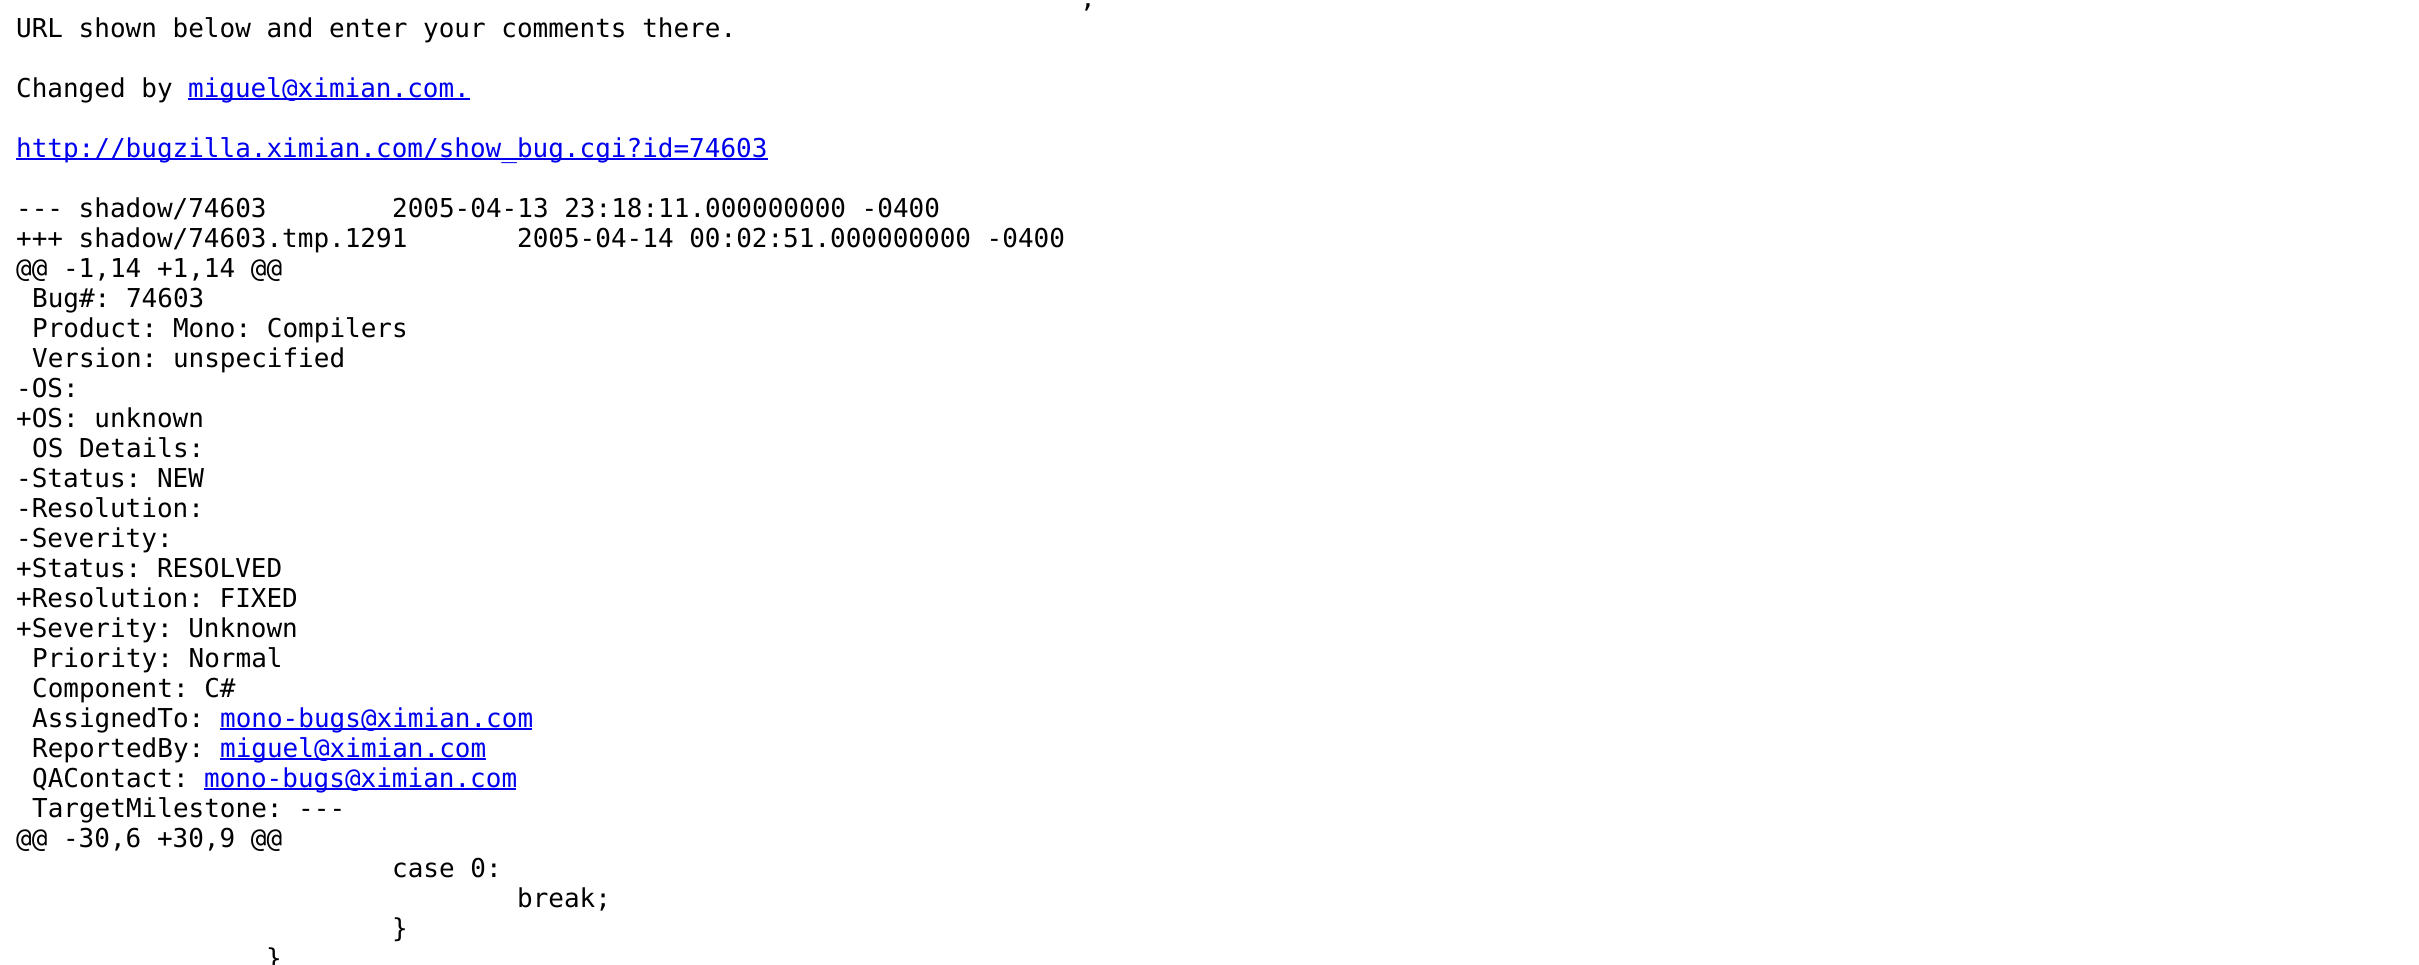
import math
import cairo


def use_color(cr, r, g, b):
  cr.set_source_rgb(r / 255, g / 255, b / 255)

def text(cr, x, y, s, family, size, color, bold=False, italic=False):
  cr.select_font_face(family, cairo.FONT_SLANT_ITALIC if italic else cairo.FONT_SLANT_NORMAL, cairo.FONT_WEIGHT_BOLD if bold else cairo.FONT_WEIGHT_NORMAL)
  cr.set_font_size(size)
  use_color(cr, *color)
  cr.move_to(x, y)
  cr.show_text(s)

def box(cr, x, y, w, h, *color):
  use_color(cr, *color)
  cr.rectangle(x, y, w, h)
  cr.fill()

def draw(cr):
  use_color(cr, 255, 255, 255)
  cr.paint()
  box(cr, 188, 98, 282, 2, 0, 0, 238)
  box(cr, 16, 158, 752, 2, 0, 0, 238)
  box(cr, 220, 728, 312, 2, 0, 0, 238)
  box(cr, 220, 758, 266, 2, 0, 0, 238)
  box(cr, 204, 788, 312, 2, 0, 0, 238)
  text(cr, 1080, 7, ",", "DejaVu Sans Mono", 26, (0, 0, 0))
  text(cr, 16, 37, "URL shown below and enter your comments there.", "DejaVu Sans Mono", 26, (0, 0, 0))
  text(cr, 16, 97, "Changed by", "DejaVu Sans Mono", 26, (0, 0, 0))
  text(cr, 188, 97, "miguel@ximian.com.", "DejaVu Sans Mono", 26, (0, 0, 238))
  text(cr, 16, 157, "http://bugzilla.ximian.com/show_bug.cgi?id=74603", "DejaVu Sans Mono", 26, (0, 0, 238))
  text(cr, 16, 217, "--- shadow/74603", "DejaVu Sans Mono", 26, (0, 0, 0))
  text(cr, 392, 217, "2005-04-13 23:18:11.000000000 -0400", "DejaVu Sans Mono", 26, (0, 0, 0))
  text(cr, 16, 247, "+++ shadow/74603.tmp.1291", "DejaVu Sans Mono", 26, (0, 0, 0))
  text(cr, 517, 247, "2005-04-14 00:02:51.000000000 -0400", "DejaVu Sans Mono", 26, (0, 0, 0))
  text(cr, 16, 277, "@@ -1,14 +1,14 @@", "DejaVu Sans Mono", 26, (0, 0, 0))
  text(cr, 32, 307, "Bug#: 74603", "DejaVu Sans Mono", 26, (0, 0, 0))
  text(cr, 32, 337, "Product: Mono: Compilers", "DejaVu Sans Mono", 26, (0, 0, 0))
  text(cr, 32, 367, "Version: unspecified", "DejaVu Sans Mono", 26, (0, 0, 0))
  text(cr, 16, 397, "-OS:", "DejaVu Sans Mono", 26, (0, 0, 0))
  text(cr, 16, 427, "+OS: unknown", "DejaVu Sans Mono", 26, (0, 0, 0))
  text(cr, 32, 457, "OS Details:", "DejaVu Sans Mono", 26, (0, 0, 0))
  text(cr, 16, 487, "-Status: NEW", "DejaVu Sans Mono", 26, (0, 0, 0))
  text(cr, 16, 517, "-Resolution:", "DejaVu Sans Mono", 26, (0, 0, 0))
  text(cr, 16, 547, "-Severity:", "DejaVu Sans Mono", 26, (0, 0, 0))
  text(cr, 16, 577, "+Status: RESOLVED", "DejaVu Sans Mono", 26, (0, 0, 0))
  text(cr, 16, 607, "+Resolution: FIXED", "DejaVu Sans Mono", 26, (0, 0, 0))
  text(cr, 16, 637, "+Severity: Unknown", "DejaVu Sans Mono", 26, (0, 0, 0))
  text(cr, 32, 667, "Priority: Normal", "DejaVu Sans Mono", 26, (0, 0, 0))
  text(cr, 32, 697, "Component: C#", "DejaVu Sans Mono", 26, (0, 0, 0))
  text(cr, 32, 727, "AssignedTo:", "DejaVu Sans Mono", 26, (0, 0, 0))
  text(cr, 220, 727, "mono-bugs@ximian.com", "DejaVu Sans Mono", 26, (0, 0, 238))
  text(cr, 32, 757, "ReportedBy:", "DejaVu Sans Mono", 26, (0, 0, 0))
  text(cr, 220, 757, "miguel@ximian.com", "DejaVu Sans Mono", 26, (0, 0, 238))
  text(cr, 32, 787, "QAContact:", "DejaVu Sans Mono", 26, (0, 0, 0))
  text(cr, 204, 787, "mono-bugs@ximian.com", "DejaVu Sans Mono", 26, (0, 0, 238))
  text(cr, 32, 817, "TargetMilestone: ---", "DejaVu Sans Mono", 26, (0, 0, 0))
  text(cr, 16, 847, "@@ -30,6 +30,9 @@", "DejaVu Sans Mono", 26, (0, 0, 0))
  text(cr, 392, 877, "case 0:", "DejaVu Sans Mono", 26, (0, 0, 0))
  text(cr, 517, 907, "break;", "DejaVu Sans Mono", 26, (0, 0, 0))
  text(cr, 392, 937, "}", "DejaVu Sans Mono", 26, (0, 0, 0))
  text(cr, 266, 967, "}", "DejaVu Sans Mono", 26, (0, 0, 0))


surface = cairo.ImageSurface(cairo.FORMAT_RGB24, 2419, 965)
cr = cairo.Context(surface)
options = cairo.FontOptions()
options.set_hint_metrics(cairo.HINT_METRICS_OFF)
options.set_hint_style(cairo.HINT_STYLE_NONE)
cr.set_font_options(options)
cr.set_miter_limit(4)
draw(cr)
surface.write_to_png("out.png")
